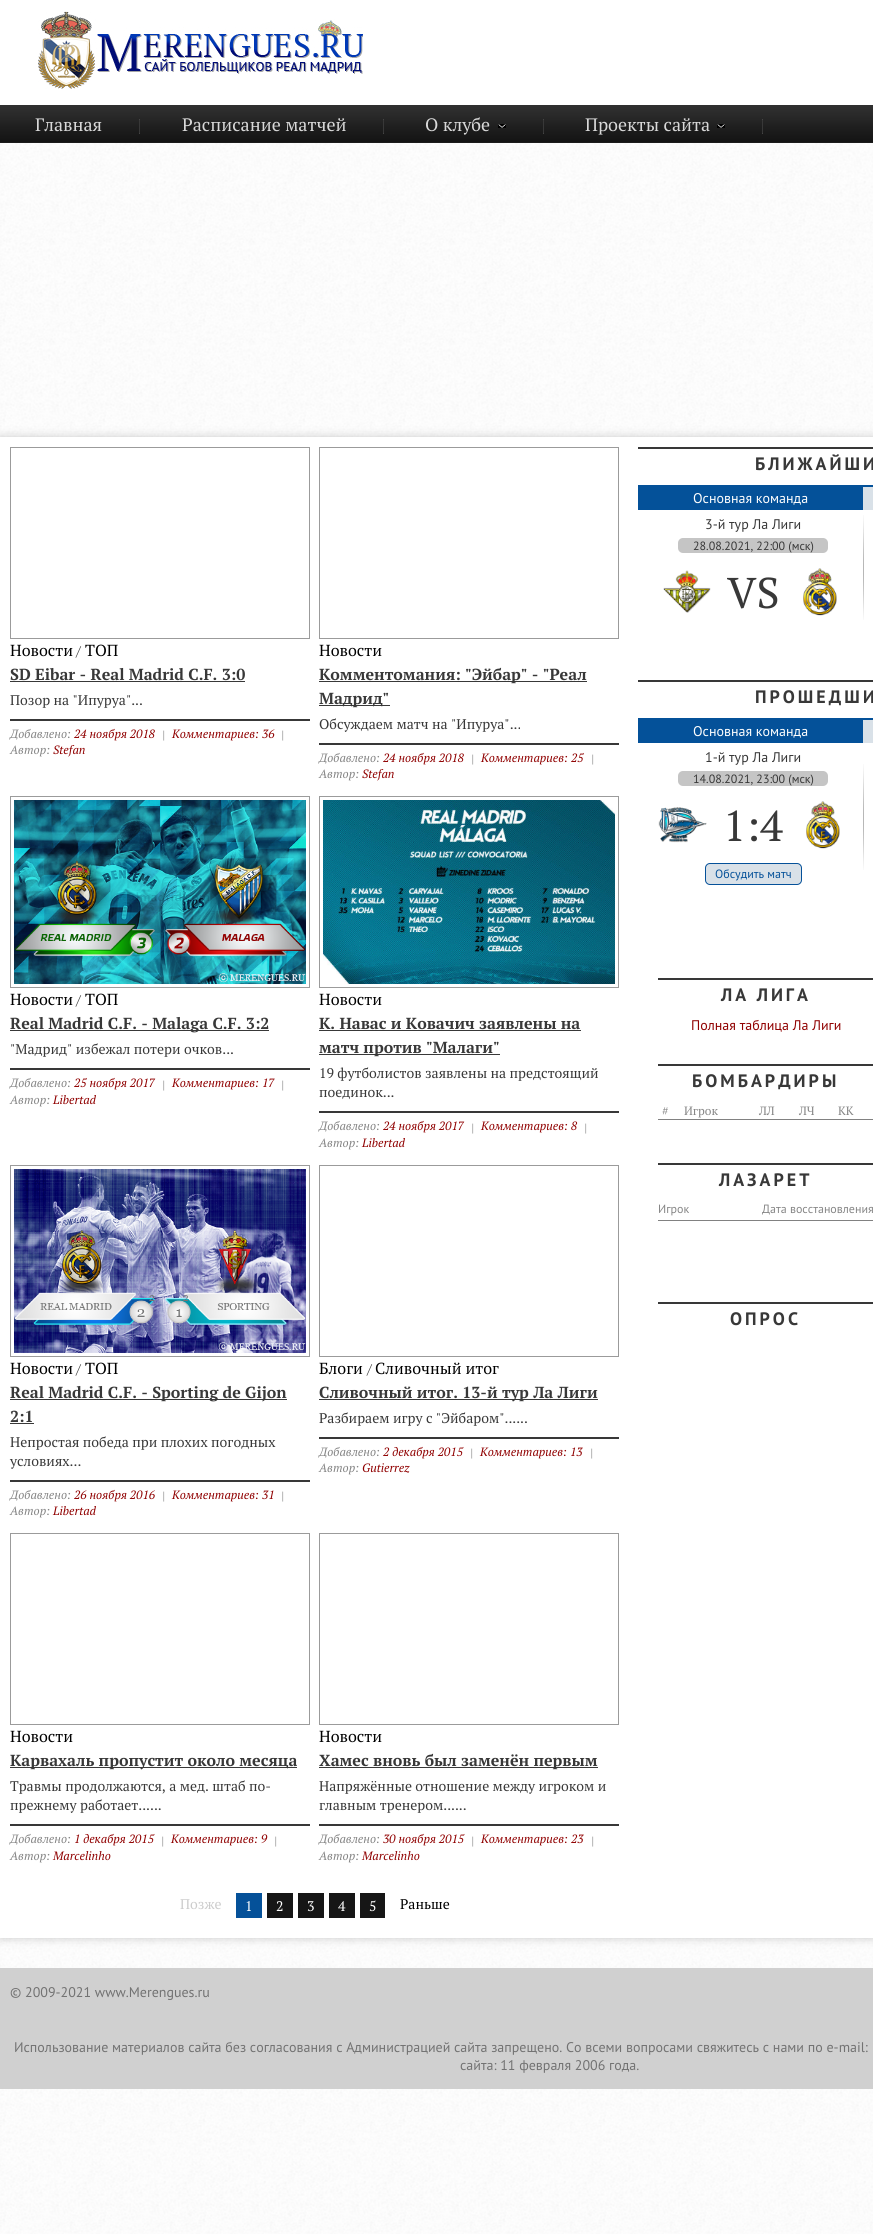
import math
import cairo


def use_color(cr, r, g, b):
  cr.set_source_rgb(r / 255, g / 255, b / 255)

def text(cr, x, y, s, family, size, color, bold=False, italic=False):
  cr.select_font_face(family, cairo.FONT_SLANT_ITALIC if italic else cairo.FONT_SLANT_NORMAL, cairo.FONT_WEIGHT_BOLD if bold else cairo.FONT_WEIGHT_NORMAL)
  cr.set_font_size(size)
  use_color(cr, *color)
  cr.move_to(x, y)
  cr.show_text(s)

def spaced_text(cr, x, y, s, letter, word):
  cr.move_to(x, y)
  for ch in s:
    cr.show_text(ch)
    cr.rel_move_to(letter + word * (ch == ' '), 0)

def box(cr, x, y, w, h, *color):
  use_color(cr, *color)
  cr.rectangle(x, y, w, h)
  cr.fill()

def round_rect(cr, x, y, w, h, r):
  cr.new_sub_path()
  for i, (u, v) in enumerate([(x + w - r, y + h - r), (x + r, y + h - r), (x + r, y + r), (x + w - r, y + r)]):
    cr.arc(u, v, r, i * math.pi / 2, (i + 1) * math.pi / 2)
  cr.close_path()

def shadow(cr, x, y, w, h, r, blur, alpha):
  cr.push_group_with_content(cairo.CONTENT_ALPHA)
  cr.set_operator(cairo.OPERATOR_SOURCE)
  for i in range(15, -16, -2):
    e = blur * i / 6
    if min(w, h) + 2 * e > 0:
      cr.set_source_rgba(0, 0, 0, alpha * math.erfc((i - 1) / 8.5) / 2)
      round_rect(cr, x - e, y - e, w + 2 * e, h + 2 * e, max(0, min(r + e + blur * .6, min(w, h) / 2 + e)))
      cr.fill()
  cr.mask(cr.pop_group())

def picture(cr, path, x, y, w, h):
  cr.save()
  cr.set_source_surface(cairo.ImageSurface.create_from_png(path), x, y)
  cr.rectangle(x, y, w, h)
  cr.fill()
  cr.restore()

def draw(cr):
  use_color(cr, 255, 255, 255)
  cr.paint()
  picture(cr, "img_01.png", 0, 143, 873, 2091)
  picture(cr, "img_02.png", 38, 11, 325, 78)
  picture(cr, "img_03.png", 0, 105, 873, 38)
  picture(cr, "img_04.png", 139, 119, 1, 15)
  picture(cr, "img_04.png", 383, 119, 1, 15)
  picture(cr, "img_04.png", 543, 119, 1, 15)
  picture(cr, "img_05.png", 498, 124, 8, 4)
  picture(cr, "img_04.png", 762, 119, 1, 15)
  picture(cr, "img_05.png", 717, 124, 8, 4)
  use_color(cr, 0, 0, 0)
  shadow(cr, 0, 437, 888, 1501, 0, 5, 0.2)
  box(cr, 0, 437, 873, 1501, 255, 255, 255)
  cr.rectangle(10.5, 447.5, 299, 191)
  use_color(cr, 155, 155, 155)
  cr.set_line_width(1)
  cr.stroke()
  box(cr, 10, 681, 235, 1, 56, 56, 56)
  box(cr, 10, 719, 300, 2, 56, 56, 56)
  cr.rectangle(319.5, 447.5, 299, 191)
  use_color(cr, 155, 155, 155)
  cr.stroke()
  box(cr, 319, 681, 268, 1, 56, 56, 56)
  box(cr, 319, 705, 71, 1, 56, 56, 56)
  box(cr, 319, 743, 300, 2, 56, 56, 56)
  cr.rectangle(10.5, 796.5, 299, 191)
  use_color(cr, 155, 155, 155)
  cr.stroke()
  picture(cr, "img_06.png", 14, 800, 292, 184)
  box(cr, 10, 1030, 259, 1, 56, 56, 56)
  box(cr, 10, 1068, 300, 2, 56, 56, 56)
  cr.rectangle(319.5, 796.5, 299, 191)
  use_color(cr, 155, 155, 155)
  cr.stroke()
  picture(cr, "img_07.png", 323, 800, 292, 184)
  box(cr, 319, 1030, 262, 1, 56, 56, 56)
  box(cr, 319, 1054, 181, 1, 56, 56, 56)
  box(cr, 319, 1111, 300, 2, 56, 56, 56)
  cr.rectangle(10.5, 1165.5, 299, 191)
  use_color(cr, 155, 155, 155)
  cr.stroke()
  picture(cr, "img_08.png", 14, 1169, 292, 184)
  box(cr, 10, 1399, 277, 1, 56, 56, 56)
  box(cr, 10, 1423, 24, 1, 56, 56, 56)
  box(cr, 10, 1480, 300, 2, 56, 56, 56)
  cr.rectangle(319.5, 1165.5, 299, 191)
  use_color(cr, 155, 155, 155)
  cr.stroke()
  box(cr, 319, 1399, 279, 1, 56, 56, 56)
  box(cr, 319, 1437, 300, 2, 56, 56, 56)
  cr.rectangle(10.5, 1533.5, 299, 191)
  use_color(cr, 155, 155, 155)
  cr.stroke()
  box(cr, 10, 1767, 287, 1, 56, 56, 56)
  box(cr, 10, 1824, 300, 2, 56, 56, 56)
  cr.rectangle(319.5, 1533.5, 299, 191)
  use_color(cr, 155, 155, 155)
  cr.stroke()
  box(cr, 319, 1767, 279, 1, 56, 56, 56)
  box(cr, 319, 1824, 300, 2, 56, 56, 56)
  box(cr, 236, 1893, 26, 25, 5, 81, 153)
  box(cr, 267, 1893, 26, 25, 22, 22, 22)
  box(cr, 298, 1893, 26, 25, 22, 22, 22)
  box(cr, 329, 1893, 26, 25, 22, 22, 22)
  box(cr, 360, 1893, 25, 25, 22, 22, 22)
  box(cr, 638, 447, 235, 2, 56, 56, 56)
  box(cr, 638, 485, 225, 25, 4, 81, 153)
  box(cr, 863, 487, 10, 23, 217, 225, 232)
  box(cr, 863, 485, 10, 2, 4, 81, 153)
  picture(cr, "img_09.png", 863, 515, 1, 105)
  use_color(cr, 197, 197, 197)
  round_rect(cr, 678, 538, 150, 15, 5)
  cr.fill()
  picture(cr, "img_10.png", 663, 570, 48, 43)
  picture(cr, "img_11.png", 803, 568, 34, 48)
  box(cr, 638, 680, 235, 2, 56, 56, 56)
  box(cr, 638, 718, 225, 25, 4, 81, 153)
  box(cr, 863, 720, 10, 23, 217, 225, 232)
  box(cr, 863, 718, 10, 2, 4, 81, 153)
  picture(cr, "img_12.png", 863, 764, 1, 106)
  use_color(cr, 197, 197, 197)
  round_rect(cr, 678, 771, 150, 15, 5)
  cr.fill()
  picture(cr, "img_13.png", 658, 807, 49, 36)
  picture(cr, "img_14.png", 806, 801, 34, 48)
  use_color(cr, 217, 225, 232)
  round_rect(cr, 705.5, 863.5, 96, 21, 4.5)
  cr.fill_preserve()
  use_color(cr, 5, 81, 153)
  cr.stroke()
  box(cr, 658, 978, 215, 2, 56, 56, 56)
  box(cr, 658, 1064, 215, 2, 56, 56, 56)
  box(cr, 658, 1119, 215, 1, 129, 129, 129)
  box(cr, 658, 1163, 215, 2, 56, 56, 56)
  box(cr, 658, 1220, 215, 1, 129, 129, 129)
  box(cr, 658, 1302, 215, 2, 56, 56, 56)
  box(cr, 0, 1968, 873, 121, 208, 208, 208)
  text(cr, 35, 131, "Главная", "PT Serif", 18, (216, 216, 216))
  text(cr, 182, 131, "Расписание матчей", "PT Serif", 18, (216, 216, 216))
  text(cr, 425, 131, "О клубе", "PT Serif", 18, (216, 216, 216))
  text(cr, 585, 131, "Проекты сайта", "PT Serif", 18, (216, 216, 216))
  text(cr, 10, 656, "Новости", "PT Serif", 16, (0, 0, 0))
  text(cr, 76, 656, "/", "PT Serif", 14, (56, 56, 56))
  text(cr, 85, 656, "ТОП", "PT Serif", 16, (0, 0, 0))
  text(cr, 10, 680, "SD Eibar - Real Madrid C.F. 3:0", "PT Serif", 16, (56, 56, 56), bold=True)
  text(cr, 10, 705, "Позор на \"Ипуруа\"...", "PT Serif", 14, (56, 56, 56))
  text(cr, 10, 738, "Добавлено:", "PT Serif", 12, (133, 133, 133), italic=True)
  text(cr, 74, 738, "24 ноября 2018", "PT Serif", 12, (144, 1, 1), italic=True)
  text(cr, 162, 739, "|", "PT Serif", 12, (133, 133, 133), italic=True)
  text(cr, 172, 738, "Комментариев: 36", "PT Serif", 12, (144, 1, 1), italic=True)
  text(cr, 281, 739, "|", "PT Serif", 12, (133, 133, 133), italic=True)
  text(cr, 10, 754, "Автор:", "PT Serif", 12, (133, 133, 133), italic=True)
  text(cr, 53, 754, "Stefan", "PT Serif", 12, (144, 1, 1), italic=True)
  text(cr, 319, 656, "Новости", "PT Serif", 16, (0, 0, 0))
  text(cr, 319, 680, "Комментомания: \"Эйбар\" - \"Реал", "PT Serif", 16, (56, 56, 56), bold=True)
  text(cr, 319, 704, "Мадрид\"", "PT Serif", 16, (56, 56, 56), bold=True)
  text(cr, 319, 729, "Обсуждаем матч на \"Ипуруа\"...", "PT Serif", 14, (56, 56, 56))
  text(cr, 319, 762, "Добавлено:", "PT Serif", 12, (133, 133, 133), italic=True)
  text(cr, 383, 762, "24 ноября 2018", "PT Serif", 12, (144, 1, 1), italic=True)
  text(cr, 471, 763, "|", "PT Serif", 12, (133, 133, 133), italic=True)
  text(cr, 481, 762, "Комментариев: 25", "PT Serif", 12, (144, 1, 1), italic=True)
  text(cr, 591, 763, "|", "PT Serif", 12, (133, 133, 133), italic=True)
  text(cr, 319, 778, "Автор:", "PT Serif", 12, (133, 133, 133), italic=True)
  text(cr, 362, 778, "Stefan", "PT Serif", 12, (144, 1, 1), italic=True)
  text(cr, 10, 1005, "Новости", "PT Serif", 16, (0, 0, 0))
  text(cr, 76, 1005, "/", "PT Serif", 14, (56, 56, 56))
  text(cr, 85, 1005, "ТОП", "PT Serif", 16, (0, 0, 0))
  text(cr, 10, 1029, "Real Madrid C.F. - Malaga C.F. 3:2", "PT Serif", 16, (56, 56, 56), bold=True)
  text(cr, 10, 1054, "\"Мадрид\" избежал потери очков...", "PT Serif", 14, (56, 56, 56))
  text(cr, 10, 1087, "Добавлено:", "PT Serif", 12, (133, 133, 133), italic=True)
  text(cr, 74, 1087, "25 ноября 2017", "PT Serif", 12, (144, 1, 1), italic=True)
  text(cr, 162, 1089, "|", "PT Serif", 12, (133, 133, 133), italic=True)
  text(cr, 172, 1087, "Комментариев: 17", "PT Serif", 12, (144, 1, 1), italic=True)
  text(cr, 281, 1089, "|", "PT Serif", 12, (133, 133, 133), italic=True)
  text(cr, 10, 1104, "Автор:", "PT Serif", 12, (133, 133, 133), italic=True)
  text(cr, 53, 1104, "Libertad", "PT Serif", 12, (144, 1, 1), italic=True)
  text(cr, 319, 1005, "Новости", "PT Serif", 16, (0, 0, 0))
  text(cr, 319, 1029, "К. Навас и Ковачич заявлены на", "PT Serif", 16, (56, 56, 56), bold=True)
  text(cr, 319, 1053, "матч против \"Малаги\"", "PT Serif", 16, (56, 56, 56), bold=True)
  text(cr, 319, 1078, "19 футболистов заявлены на предстоящий", "PT Serif", 14, (56, 56, 56))
  text(cr, 319, 1097, "поединок...", "PT Serif", 14, (56, 56, 56))
  text(cr, 319, 1130, "Добавлено:", "PT Serif", 12, (133, 133, 133), italic=True)
  text(cr, 383, 1130, "24 ноября 2017", "PT Serif", 12, (144, 1, 1), italic=True)
  text(cr, 471, 1132, "|", "PT Serif", 12, (133, 133, 133), italic=True)
  text(cr, 481, 1130, "Комментариев: 8", "PT Serif", 12, (144, 1, 1), italic=True)
  text(cr, 584, 1132, "|", "PT Serif", 12, (133, 133, 133), italic=True)
  text(cr, 319, 1147, "Автор:", "PT Serif", 12, (133, 133, 133), italic=True)
  text(cr, 362, 1147, "Libertad", "PT Serif", 12, (144, 1, 1), italic=True)
  text(cr, 10, 1374, "Новости", "PT Serif", 16, (0, 0, 0))
  text(cr, 76, 1374, "/", "PT Serif", 14, (56, 56, 56))
  text(cr, 85, 1374, "ТОП", "PT Serif", 16, (0, 0, 0))
  text(cr, 10, 1398, "Real Madrid C.F. - Sporting de Gijon", "PT Serif", 16, (56, 56, 56), bold=True)
  text(cr, 10, 1422, "2:1", "PT Serif", 16, (56, 56, 56), bold=True)
  text(cr, 10, 1447, "Непростая победа при плохих погодных", "PT Serif", 14, (56, 56, 56))
  text(cr, 10, 1466, "условиях...", "PT Serif", 14, (56, 56, 56))
  text(cr, 10, 1499, "Добавлено:", "PT Serif", 12, (133, 133, 133), italic=True)
  text(cr, 74, 1499, "26 ноября 2016", "PT Serif", 12, (144, 1, 1), italic=True)
  text(cr, 162, 1500, "|", "PT Serif", 12, (133, 133, 133), italic=True)
  text(cr, 172, 1499, "Комментариев: 31", "PT Serif", 12, (144, 1, 1), italic=True)
  text(cr, 281, 1500, "|", "PT Serif", 12, (133, 133, 133), italic=True)
  text(cr, 10, 1515, "Автор:", "PT Serif", 12, (133, 133, 133), italic=True)
  text(cr, 53, 1515, "Libertad", "PT Serif", 12, (144, 1, 1), italic=True)
  text(cr, 319, 1374, "Блоги", "PT Serif", 16, (0, 0, 0))
  text(cr, 367, 1374, "/", "PT Serif", 14, (56, 56, 56))
  text(cr, 375, 1374, "Сливочный итог", "PT Serif", 16, (0, 0, 0))
  text(cr, 319, 1398, "Сливочный итог. 13-й тур Ла Лиги", "PT Serif", 16, (56, 56, 56), bold=True)
  text(cr, 319, 1423, "Разбираем игру с \"Эйбаром\"......", "PT Serif", 14, (56, 56, 56))
  text(cr, 319, 1456, "Добавлено:", "PT Serif", 12, (133, 133, 133), italic=True)
  text(cr, 383, 1456, "2 декабря 2015", "PT Serif", 12, (144, 1, 1), italic=True)
  text(cr, 470, 1457, "|", "PT Serif", 12, (133, 133, 133), italic=True)
  text(cr, 480, 1456, "Комментариев: 13", "PT Serif", 12, (144, 1, 1), italic=True)
  text(cr, 590, 1457, "|", "PT Serif", 12, (133, 133, 133), italic=True)
  text(cr, 319, 1472, "Автор:", "PT Serif", 12, (133, 133, 133), italic=True)
  text(cr, 362, 1472, "Gutierrez", "PT Serif", 12, (144, 1, 1), italic=True)
  text(cr, 10, 1742, "Новости", "PT Serif", 16, (0, 0, 0))
  text(cr, 10, 1766, "Карвахаль пропустит около месяца", "PT Serif", 16, (56, 56, 56), bold=True)
  text(cr, 10, 1791, "Травмы продолжаются, а мед. штаб по-", "PT Serif", 14, (56, 56, 56))
  text(cr, 10, 1810, "прежнему работает......", "PT Serif", 14, (56, 56, 56))
  text(cr, 10, 1843, "Добавлено:", "PT Serif", 12, (133, 133, 133), italic=True)
  text(cr, 74, 1843, "1 декабря 2015", "PT Serif", 12, (144, 1, 1), italic=True)
  text(cr, 161, 1845, "|", "PT Serif", 12, (133, 133, 133), italic=True)
  text(cr, 171, 1843, "Комментариев: 9", "PT Serif", 12, (144, 1, 1), italic=True)
  text(cr, 274, 1845, "|", "PT Serif", 12, (133, 133, 133), italic=True)
  text(cr, 10, 1860, "Автор:", "PT Serif", 12, (133, 133, 133), italic=True)
  text(cr, 53, 1860, "Marcelinho", "PT Serif", 12, (144, 1, 1), italic=True)
  text(cr, 319, 1742, "Новости", "PT Serif", 16, (0, 0, 0))
  text(cr, 319, 1766, "Хамес вновь был заменён первым", "PT Serif", 16, (56, 56, 56), bold=True)
  text(cr, 319, 1791, "Напряжённые отношение между игроком и", "PT Serif", 14, (56, 56, 56))
  text(cr, 319, 1810, "главным тренером......", "PT Serif", 14, (56, 56, 56))
  text(cr, 319, 1843, "Добавлено:", "PT Serif", 12, (133, 133, 133), italic=True)
  text(cr, 383, 1843, "30 ноября 2015", "PT Serif", 12, (144, 1, 1), italic=True)
  text(cr, 471, 1845, "|", "PT Serif", 12, (133, 133, 133), italic=True)
  text(cr, 481, 1843, "Комментариев: 23", "PT Serif", 12, (144, 1, 1), italic=True)
  text(cr, 591, 1845, "|", "PT Serif", 12, (133, 133, 133), italic=True)
  text(cr, 319, 1860, "Автор:", "PT Serif", 12, (133, 133, 133), italic=True)
  text(cr, 362, 1860, "Marcelinho", "PT Serif", 12, (144, 1, 1), italic=True)
  text(cr, 180, 1909, "Позже", "PT Serif", 14, (204, 204, 204))
  text(cr, 245, 1911, "1", "PT Serif", 14, (255, 255, 255))
  text(cr, 276, 1911, "2", "PT Serif", 14, (255, 255, 255))
  text(cr, 307, 1911, "3", "PT Serif", 14, (255, 255, 255))
  text(cr, 338, 1911, "4", "PT Serif", 14, (255, 255, 255))
  text(cr, 369, 1911, "5", "PT Serif", 14, (255, 255, 255))
  text(cr, 400, 1909, "Раньше", "PT Serif", 14, (0, 0, 0))
  cr.select_font_face("PT Sans", cairo.FONT_SLANT_NORMAL, cairo.FONT_WEIGHT_BOLD)
  cr.set_font_size(18)
  use_color(cr, 56, 56, 56)
  spaced_text(cr, 755, 470, "БЛИЖАЙШИ", 3, 0)
  text(cr, 693, 503, "Основная команда", "PT Sans", 14, (255, 255, 255))
  text(cr, 705, 529, "3-й тур Ла Лиги", "PT Sans", 14, (56, 56, 56))
  text(cr, 693, 550, "28.08.2021, 22:00 (мск)", "PT Sans", 12, (56, 56, 56))
  text(cr, 727, 608, "VS", "PT Serif", 43, (56, 56, 56))
  cr.select_font_face("PT Sans", cairo.FONT_SLANT_NORMAL, cairo.FONT_WEIGHT_BOLD)
  cr.set_font_size(18)
  spaced_text(cr, 755, 703, "ПРОШЕДШИ", 3, 0)
  text(cr, 693, 736, "Основная команда", "PT Sans", 14, (255, 255, 255))
  text(cr, 705, 762, "1-й тур Ла Лиги", "PT Sans", 14, (56, 56, 56))
  text(cr, 693, 783, "14.08.2021, 23:00 (мск)", "PT Sans", 12, (56, 56, 56))
  text(cr, 723, 841, "1:4", "PT Serif", 43, (56, 56, 56))
  text(cr, 715, 878, "Обсудить матч", "PT Sans", 12, (5, 81, 153))
  cr.select_font_face("PT Sans", cairo.FONT_SLANT_NORMAL, cairo.FONT_WEIGHT_BOLD)
  cr.set_font_size(18)
  use_color(cr, 56, 56, 56)
  spaced_text(cr, 721, 1001, "ЛА ЛИГА", 3, 0)
  text(cr, 691, 1030, "Полная таблица Ла Лиги", "PT Sans", 14, (144, 1, 1))
  cr.select_font_face("PT Sans", cairo.FONT_SLANT_NORMAL, cairo.FONT_WEIGHT_BOLD)
  cr.set_font_size(18)
  use_color(cr, 56, 56, 56)
  spaced_text(cr, 692, 1087, "БОМБАРДИРЫ", 3, 0)
  text(cr, 662, 1115, "#", "PT Serif", 12, (133, 133, 133))
  text(cr, 684, 1115, "Игрок", "PT Serif", 12, (133, 133, 133))
  text(cr, 759, 1115, "ЛЛ", "PT Serif", 12, (133, 133, 133))
  text(cr, 799, 1115, "ЛЧ", "PT Serif", 12, (133, 133, 133))
  text(cr, 838, 1115, "КК", "PT Serif", 12, (133, 133, 133))
  cr.select_font_face("PT Sans", cairo.FONT_SLANT_NORMAL, cairo.FONT_WEIGHT_BOLD)
  cr.set_font_size(18)
  use_color(cr, 56, 56, 56)
  spaced_text(cr, 719, 1186, "ЛАЗАРЕТ", 3, 0)
  text(cr, 658, 1213, "Игрок", "PT Sans", 12, (133, 133, 133))
  text(cr, 762, 1213, "Дата восстановления", "PT Sans", 12, (133, 133, 133))
  cr.select_font_face("PT Sans", cairo.FONT_SLANT_NORMAL, cairo.FONT_WEIGHT_BOLD)
  cr.set_font_size(18)
  use_color(cr, 56, 56, 56)
  spaced_text(cr, 730, 1325, "ОПРОС", 3, 0)
  text(cr, 10, 1997, "© 2009-2021 www.Merengues.ru", "PT Sans", 14, (114, 114, 114))
  text(cr, 14, 2052, "Использование материалов сайта без согласования с Администрацией сайта запрещено. Со всеми вопросами свяжитесь с нами по e-mail:", "PT Sans", 14, (114, 114, 114))
  text(cr, 460, 2070, "сайта: 11 февраля 2006 года.", "PT Sans", 14, (114, 114, 114))


surface = cairo.ImageSurface(cairo.FORMAT_RGB24, 873, 2234)
cr = cairo.Context(surface)
options = cairo.FontOptions()
options.set_hint_metrics(cairo.HINT_METRICS_OFF)
options.set_hint_style(cairo.HINT_STYLE_NONE)
cr.set_font_options(options)
cr.set_miter_limit(4)
draw(cr)
surface.write_to_png("out.png")
